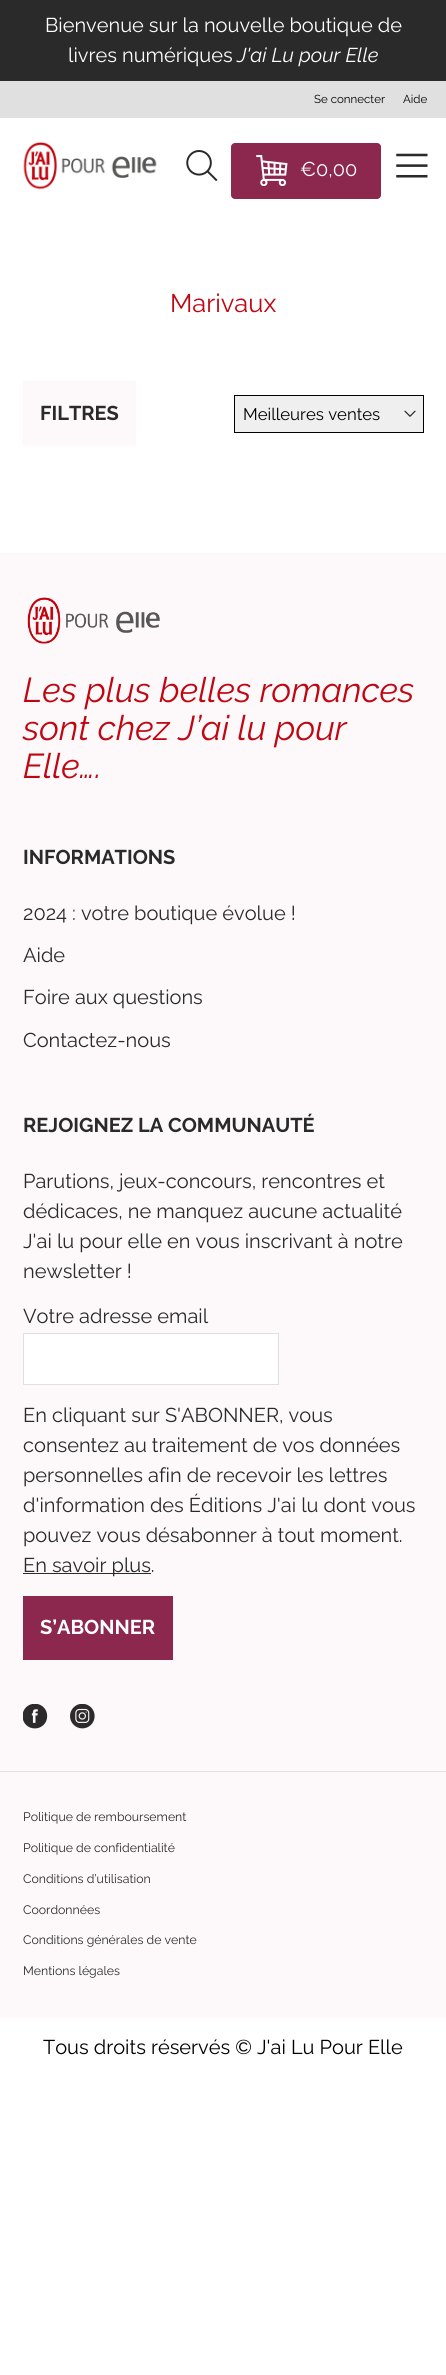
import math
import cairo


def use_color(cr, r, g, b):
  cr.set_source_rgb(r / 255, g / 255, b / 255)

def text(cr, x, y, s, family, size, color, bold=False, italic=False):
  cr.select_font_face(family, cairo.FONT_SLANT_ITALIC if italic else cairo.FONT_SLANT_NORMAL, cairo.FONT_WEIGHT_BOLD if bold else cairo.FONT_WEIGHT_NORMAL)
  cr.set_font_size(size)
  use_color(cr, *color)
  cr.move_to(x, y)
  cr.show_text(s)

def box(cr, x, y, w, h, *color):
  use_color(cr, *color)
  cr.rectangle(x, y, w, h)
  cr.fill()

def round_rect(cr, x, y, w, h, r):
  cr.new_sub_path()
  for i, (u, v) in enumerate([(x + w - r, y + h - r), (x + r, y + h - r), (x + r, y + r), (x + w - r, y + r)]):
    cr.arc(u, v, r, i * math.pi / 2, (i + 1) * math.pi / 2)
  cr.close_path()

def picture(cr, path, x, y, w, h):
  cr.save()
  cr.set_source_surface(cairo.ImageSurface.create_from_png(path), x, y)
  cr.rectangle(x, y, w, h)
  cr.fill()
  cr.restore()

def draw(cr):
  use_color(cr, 255, 255, 255)
  cr.paint()
  box(cr, 0, 0, 446, 81, 42, 42, 42)
  box(cr, 0, 81, 446, 37, 224, 224, 224)
  picture(cr, "img_01.png", 23, 142, 134, 48)
  picture(cr, "img_02.png", 186, 150, 32, 31)
  use_color(cr, 140, 39, 77)
  round_rect(cr, 231, 143, 150, 56, 4)
  cr.fill()
  picture(cr, "img_03.png", 256, 155, 32, 31)
  picture(cr, "img_04.png", 396, 153, 32, 25)
  box(cr, 23, 381, 113, 65, 253, 248, 250)
  use_color(cr, 239, 239, 239)
  cr.rectangle(234.5, 395.5, 189, 37)
  cr.fill_preserve()
  use_color(cr, 0, 0, 0)
  cr.set_line_width(1)
  cr.stroke()
  picture(cr, "img_05.png", 404, 410, 12, 7)
  box(cr, 0, 553, 446, 1465, 253, 249, 250)
  picture(cr, "img_06.png", 27, 597, 133, 47)
  use_color(cr, 255, 255, 255)
  cr.rectangle(23.5, 1333.5, 255, 51)
  cr.fill_preserve()
  use_color(cr, 224, 224, 224)
  cr.stroke()
  box(cr, 23, 1573, 128, 1, 45, 42, 43)
  box(cr, 23, 1596, 150, 64, 140, 39, 77)
  picture(cr, "img_07.png", 23, 1704, 25, 25)
  picture(cr, "img_08.png", 70, 1704, 25, 25)
  box(cr, 0, 1771, 446, 1, 224, 224, 224)
  text(cr, 45, 32, "Bienvenue sur la nouvelle boutique de", "Raleway", 20, (255, 255, 255))
  text(cr, 68, 62, "livres numériques", "Raleway", 20, (255, 255, 255))
  text(cr, 237, 62, "J'ai Lu pour Elle", "Raleway", 20, (255, 255, 255), italic=True)
  text(cr, 314, 103, "Se connecter", "Raleway", 11.5, (0, 0, 0))
  text(cr, 403, 103, "Aide", "Raleway", 11.5, (0, 0, 0))
  text(cr, 300, 176, "€0,00", "Raleway", 20, (255, 255, 255))
  text(cr, 170, 312, "Marivaux", "Raleway", 25.5, (191, 6, 17))
  text(cr, 40, 420, "FILTRES", "Raleway", 20, (42, 42, 42), bold=True)
  text(cr, 243, 420, "Meilleures ventes", "Raleway", 16.75, (0, 0, 0))
  text(cr, 23, 702, "Les plus belles romances", "Raleway", 34.5, (191, 6, 17), italic=True)
  text(cr, 23, 740, "sont chez J’ai lu pour", "Raleway", 34.5, (191, 6, 17), italic=True)
  text(cr, 23, 778, "Elle….", "Raleway", 34.5, (191, 6, 17), italic=True)
  text(cr, 23, 864, "INFORMATIONS", "Raleway", 20, (42, 42, 42), bold=True)
  text(cr, 23, 920, "2024 : votre boutique évolue !", "Raleway", 20, (42, 42, 42))
  text(cr, 23, 962, "Aide", "Raleway", 20, (42, 42, 42))
  text(cr, 23, 1004, "Foire aux questions", "Raleway", 20, (42, 42, 42))
  text(cr, 23, 1047, "Contactez-nous", "Raleway", 20, (42, 42, 42))
  text(cr, 23, 1132, "REJOIGNEZ LA COMMUNAUTÉ", "Raleway", 20, (42, 42, 42), bold=True)
  text(cr, 23, 1188, "Parutions, jeux-concours, rencontres et", "Raleway", 20, (42, 42, 42))
  text(cr, 23, 1218, "dédicaces, ne manquez aucune actualité", "Raleway", 20, (42, 42, 42))
  text(cr, 23, 1248, "J'ai lu pour elle en vous inscrivant à notre", "Raleway", 20, (42, 42, 42))
  text(cr, 23, 1278, "newsletter !", "Raleway", 20, (42, 42, 42))
  text(cr, 23, 1323, "Votre adresse email", "Raleway", 20, (42, 42, 42))
  text(cr, 23, 1422, "En cliquant sur S'ABONNER, vous", "Raleway", 20, (42, 42, 42))
  text(cr, 23, 1452, "consentez au traitement de vos données", "Raleway", 20, (42, 42, 42))
  text(cr, 23, 1482, "personnelles afin de recevoir les lettres", "Raleway", 20, (42, 42, 42))
  text(cr, 23, 1512, "d'information des Éditions J'ai lu dont vous", "Raleway", 20, (42, 42, 42))
  text(cr, 23, 1542, "pouvez vous désabonner à tout moment.", "Raleway", 20, (42, 42, 42))
  text(cr, 23, 1572, "En savoir plus.", "Raleway", 20, (42, 42, 42))
  text(cr, 40, 1634, "S’ABONNER", "Raleway", 20, (255, 255, 255), bold=True)
  text(cr, 23, 1821, "Politique de remboursement", "Raleway", 12.3, (42, 42, 42))
  text(cr, 23, 1852, "Politique de confidentialité", "Raleway", 12.3, (42, 42, 42))
  text(cr, 23, 1883, "Conditions d’utilisation", "Raleway", 12.3, (42, 42, 42))
  text(cr, 23, 1914, "Coordonnées", "Raleway", 12.3, (42, 42, 42))
  text(cr, 23, 1944, "Conditions générales de vente", "Raleway", 12.3, (42, 42, 42))
  text(cr, 23, 1975, "Mentions légales", "Raleway", 12.3, (42, 42, 42))
  text(cr, 43, 2054, "Tous droits réservés © J'ai Lu Pour Elle", "Raleway", 20, (0, 0, 0))


surface = cairo.ImageSurface(cairo.FORMAT_RGB24, 446, 2375)
cr = cairo.Context(surface)
options = cairo.FontOptions()
options.set_hint_metrics(cairo.HINT_METRICS_OFF)
options.set_hint_style(cairo.HINT_STYLE_NONE)
cr.set_font_options(options)
cr.set_miter_limit(4)
draw(cr)
surface.write_to_png("out.png")
